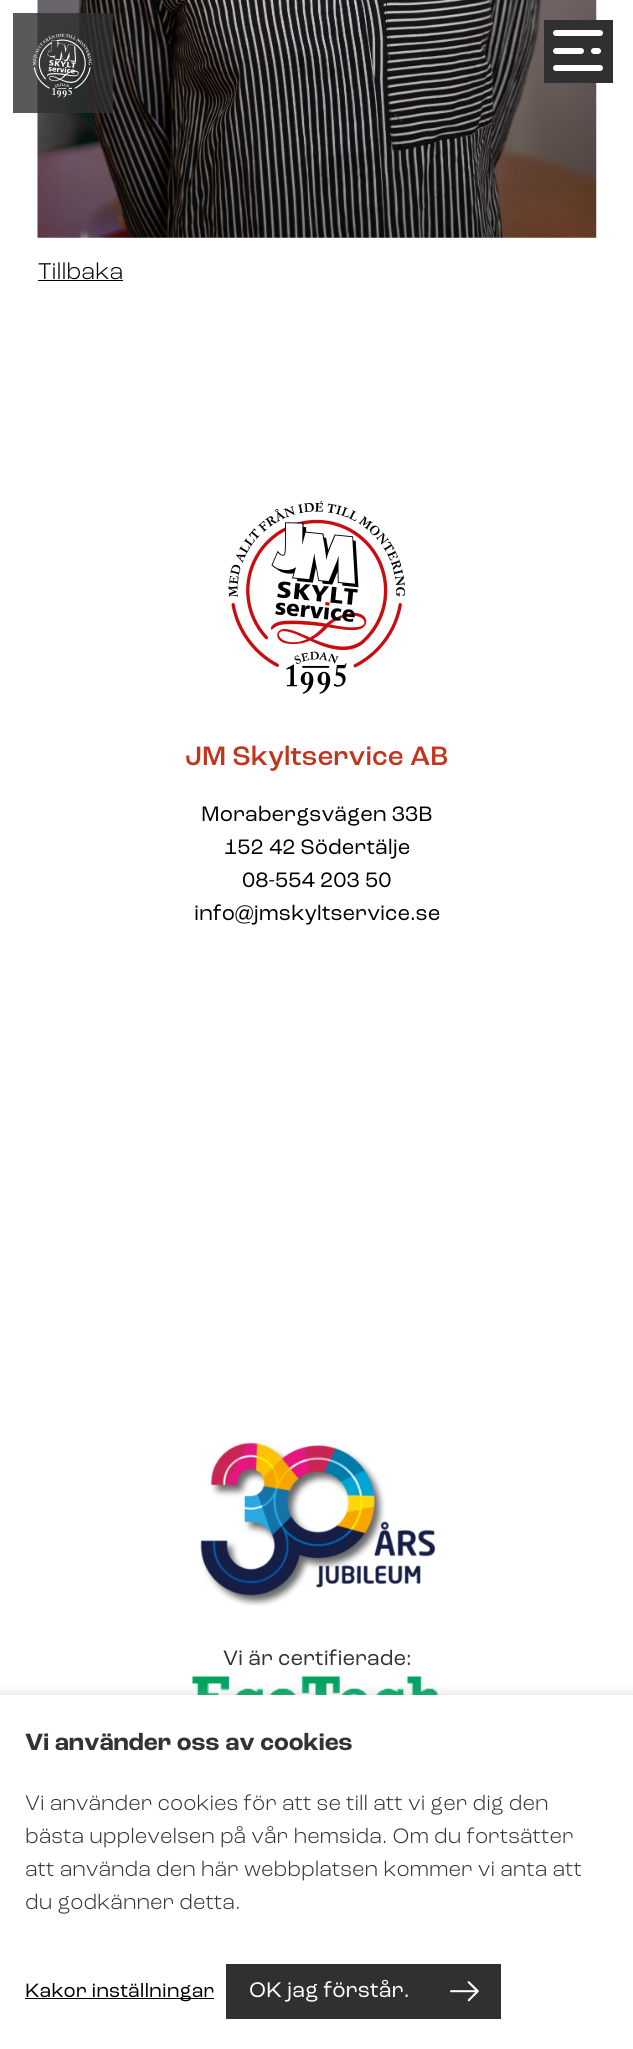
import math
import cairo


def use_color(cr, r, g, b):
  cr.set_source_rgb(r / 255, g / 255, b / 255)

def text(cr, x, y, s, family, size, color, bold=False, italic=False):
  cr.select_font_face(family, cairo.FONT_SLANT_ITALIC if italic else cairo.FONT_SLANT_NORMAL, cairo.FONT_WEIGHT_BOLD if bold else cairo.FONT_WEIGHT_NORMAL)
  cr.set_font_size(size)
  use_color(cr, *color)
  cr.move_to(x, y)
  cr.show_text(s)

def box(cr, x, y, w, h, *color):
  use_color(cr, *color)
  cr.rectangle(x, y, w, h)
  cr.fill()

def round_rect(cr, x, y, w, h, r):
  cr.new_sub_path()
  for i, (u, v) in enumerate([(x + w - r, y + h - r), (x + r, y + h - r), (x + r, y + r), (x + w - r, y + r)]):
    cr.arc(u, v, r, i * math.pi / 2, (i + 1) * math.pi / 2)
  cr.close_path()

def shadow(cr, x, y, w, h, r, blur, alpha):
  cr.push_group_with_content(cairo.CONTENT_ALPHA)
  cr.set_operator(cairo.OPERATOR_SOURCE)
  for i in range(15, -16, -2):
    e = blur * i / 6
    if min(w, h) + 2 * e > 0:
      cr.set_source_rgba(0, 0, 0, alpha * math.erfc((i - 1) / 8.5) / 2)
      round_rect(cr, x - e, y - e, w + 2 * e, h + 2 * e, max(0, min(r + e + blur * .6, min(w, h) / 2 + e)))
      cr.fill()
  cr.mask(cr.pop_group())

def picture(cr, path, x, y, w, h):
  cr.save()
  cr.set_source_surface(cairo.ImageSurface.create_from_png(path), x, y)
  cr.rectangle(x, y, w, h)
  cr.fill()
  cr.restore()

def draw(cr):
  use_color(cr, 255, 255, 255)
  cr.paint()
  picture(cr, "img_02.png", 37, 0, 560, 238)
  cr.set_source_rgba(0.188, 0.188, 0.188, 0.8)
  cr.rectangle(13, 13, 100, 100)
  cr.fill()
  picture(cr, "img_01.png", 32, 33, 60, 65)
  box(cr, 544, 20, 69, 63, 48, 48, 48)
  use_color(cr, 255, 255, 255)
  round_rect(cr, 553, 30, 50, 6, 3)
  cr.fill()
  round_rect(cr, 553, 48, 31, 6, 3)
  cr.fill()
  round_rect(cr, 591.5, 48.5, 9, 5, 2.5)
  cr.fill_preserve()
  cr.set_line_width(1)
  cr.stroke()
  round_rect(cr, 553, 65, 50, 6, 3)
  cr.fill()
  box(cr, 38, 280, 85, 1, 0, 0, 0)
  picture(cr, "img_03.png", 228, 501, 178, 193)
  picture(cr, "img_04.png", 200, 1442, 236, 164)
  picture(cr, "img_05.png", 192, 1676, 247, 19)
  use_color(cr, 172, 171, 171)
  shadow(cr, 0, 1694, 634, 355, 0, 6, 0.4)
  box(cr, 0, 1695, 633, 354, 255, 255, 255)
  box(cr, 25, 1998, 189, 1, 0, 0, 0)
  box(cr, 226, 1964, 275, 55, 48, 48, 48)
  picture(cr, "img_06.png", 450, 1981, 29, 21)
  text(cr, 38, 279, "Tillbaka", "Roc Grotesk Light", 24, (0, 0, 0))
  text(cr, 185, 765, "JM Skyltservice AB", "Roc Grotesk Medium", 28, (194, 52, 28))
  text(cr, 201, 821, "Morabergsvägen 33B", "Roc Grotesk", 22, (0, 0, 0))
  text(cr, 224, 854, "152 42 Södertälje", "Roc Grotesk", 22, (0, 0, 0))
  text(cr, 242, 887, "08-554 203 50", "Roc Grotesk", 22, (0, 0, 0))
  text(cr, 194, 920, "info@jmskyltservice.se", "Roc Grotesk", 22, (0, 0, 0))
  text(cr, 223, 1665, "Vi är certifierade:", "Roc Grotesk", 22, (51, 51, 51))
  text(cr, 25, 1750, "Vi använder oss av cookies", "Roc Grotesk", 24.75, (51, 51, 51), bold=True)
  text(cr, 25, 1810, "Vi använder cookies för att se till att vi ger dig den", "Roc Grotesk Light", 22, (51, 51, 51))
  text(cr, 25, 1843, "bästa upplevelsen på vår hemsida. Om du fortsätter", "Roc Grotesk Light", 22, (51, 51, 51))
  text(cr, 25, 1876, "att använda den här webbplatsen kommer vi anta att", "Roc Grotesk Light", 22, (51, 51, 51))
  text(cr, 25, 1909, "du godkänner detta.", "Roc Grotesk Light", 22, (51, 51, 51))
  text(cr, 25, 1997, "Kakor inställningar", "Roc Grotesk", 20.25, (0, 0, 0))
  text(cr, 249, 1997, "OK jag förstår.", "Roc Grotesk", 22.25, (255, 255, 255))


surface = cairo.ImageSurface(cairo.FORMAT_RGB24, 633, 2049)
cr = cairo.Context(surface)
options = cairo.FontOptions()
options.set_hint_metrics(cairo.HINT_METRICS_OFF)
options.set_hint_style(cairo.HINT_STYLE_NONE)
cr.set_font_options(options)
cr.set_miter_limit(4)
draw(cr)
surface.write_to_png("out.png")
